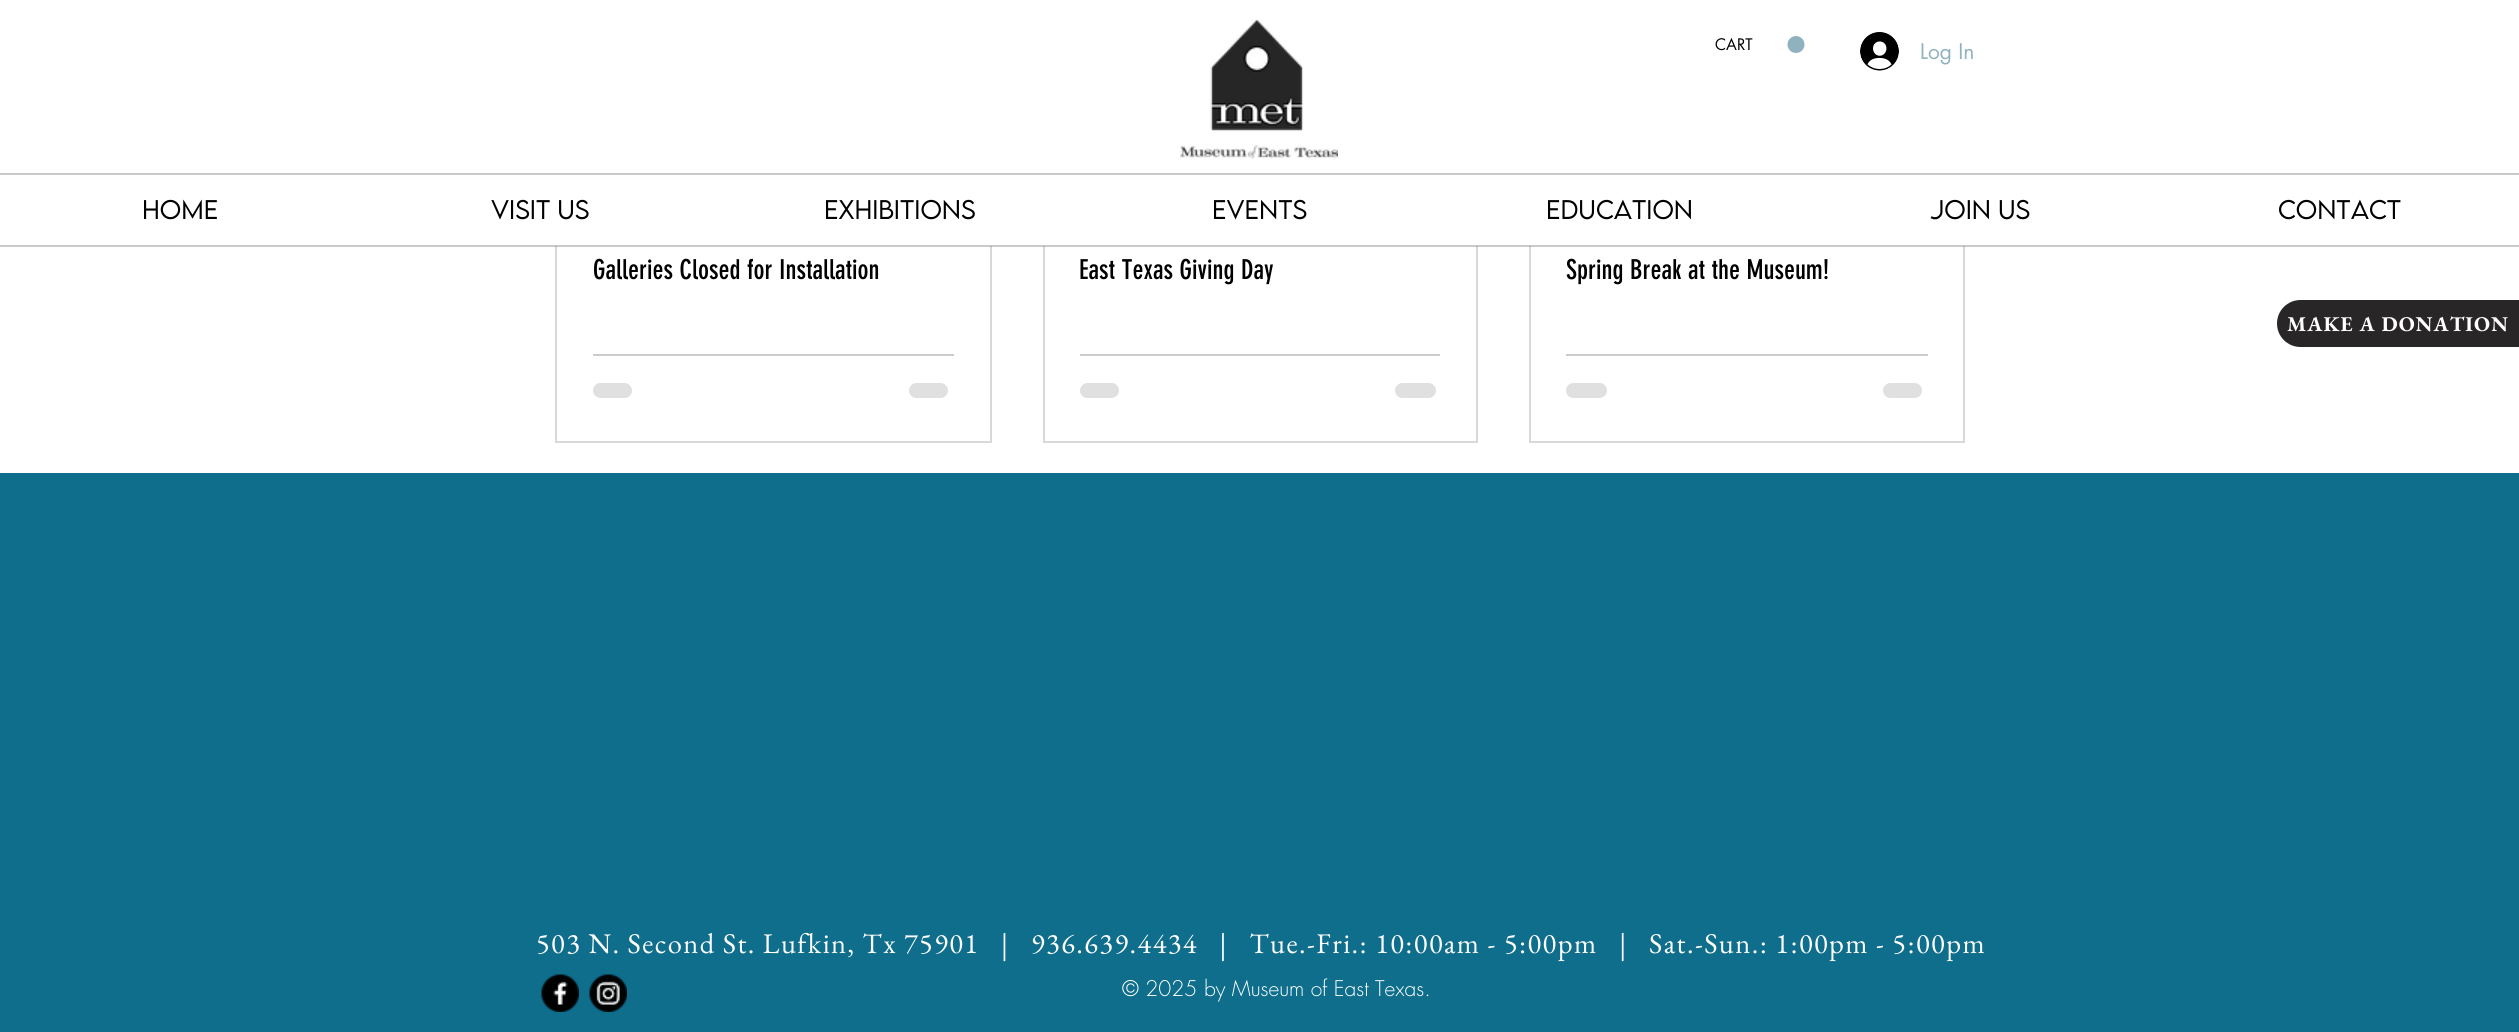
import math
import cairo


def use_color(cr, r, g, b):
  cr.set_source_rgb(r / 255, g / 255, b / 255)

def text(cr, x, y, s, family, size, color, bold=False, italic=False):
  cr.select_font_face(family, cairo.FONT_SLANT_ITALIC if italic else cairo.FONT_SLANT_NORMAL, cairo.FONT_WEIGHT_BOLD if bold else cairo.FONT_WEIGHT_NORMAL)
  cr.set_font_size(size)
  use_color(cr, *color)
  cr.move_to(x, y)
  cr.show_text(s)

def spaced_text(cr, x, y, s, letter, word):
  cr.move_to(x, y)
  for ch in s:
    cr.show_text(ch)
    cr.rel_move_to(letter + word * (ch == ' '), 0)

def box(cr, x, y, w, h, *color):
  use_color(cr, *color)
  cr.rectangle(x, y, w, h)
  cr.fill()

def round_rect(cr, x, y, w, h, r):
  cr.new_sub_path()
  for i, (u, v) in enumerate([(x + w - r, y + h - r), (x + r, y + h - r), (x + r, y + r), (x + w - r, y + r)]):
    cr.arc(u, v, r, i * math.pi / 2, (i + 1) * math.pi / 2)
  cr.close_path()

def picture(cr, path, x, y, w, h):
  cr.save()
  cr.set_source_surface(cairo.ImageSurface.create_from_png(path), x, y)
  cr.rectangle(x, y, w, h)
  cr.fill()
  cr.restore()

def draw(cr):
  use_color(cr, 255, 255, 255)
  cr.paint()
  cr.rectangle(556, -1, 435, 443)
  use_color(cr, 217, 217, 217)
  cr.stroke()
  cr.rectangle(1044, -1, 433, 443)
  cr.stroke()
  cr.rectangle(1530, -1, 434, 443)
  cr.stroke()
  box(cr, 555, 0, 1410, 246, 255, 255, 255)
  picture(cr, "img_01.png", 1180, 20, 158, 139)
  use_color(cr, 143, 178, 190)
  cr.arc(1796, 44.5, 8.5, 0, 2 * math.pi)
  cr.fill()
  picture(cr, "img_02.png", 1860, 32, 39, 39)
  box(cr, 0, 173, 2519, 2, 201, 201, 201)
  cr.set_source_rgba(0, 0, 0, 0.21)
  cr.rectangle(0, 245, 2519, 2)
  cr.fill()
  box(cr, 593, 354, 361, 2, 204, 204, 204)
  use_color(cr, 224, 224, 224)
  round_rect(cr, 593, 383, 39, 15, 7.5)
  cr.fill()
  round_rect(cr, 909, 383, 39, 15, 7.5)
  cr.fill()
  box(cr, 1080, 354, 360, 2, 204, 204, 204)
  use_color(cr, 224, 224, 224)
  round_rect(cr, 1080, 383, 39, 15, 7.5)
  cr.fill()
  round_rect(cr, 1395, 383, 41, 15, 7.5)
  cr.fill()
  box(cr, 1566, 354, 362, 2, 204, 204, 204)
  use_color(cr, 224, 224, 224)
  round_rect(cr, 1566, 383, 41, 15, 7.5)
  cr.fill()
  round_rect(cr, 1883, 383, 39, 15, 7.5)
  cr.fill()
  use_color(cr, 40, 38, 38)
  cr.new_path()
  cr.move_to(2300.5, 300)
  cr.line_to(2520, 300)
  cr.line_to(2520, 347)
  cr.line_to(2300.5, 347)
  cr.curve_to(2287.5, 347, 2277, 336.5, 2277, 323.5)
  cr.curve_to(2277, 310.5, 2287.5, 300, 2300.5, 300)
  cr.close_path()
  cr.fill()
  box(cr, 0, 473, 2519, 559, 14, 110, 140)
  picture(cr, "img_03.png", 541, 974, 38, 38)
  picture(cr, "img_04.png", 589, 974, 38, 38)
  text(cr, 1715, 50, "CART", "futura", 15.5, (0, 0, 0))
  text(cr, 1920, 59, "Log In", "futura", 21, (143, 178, 190))
  text(cr, 142, 219, "Home", "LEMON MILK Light", 24, (0, 0, 0))
  text(cr, 491, 219, "Visit Us", "LEMON MILK Light", 24, (0, 0, 0))
  text(cr, 824, 219, "Exhibitions", "LEMON MILK Light", 24, (0, 0, 0))
  text(cr, 1212, 219, "Events", "LEMON MILK Light", 24, (0, 0, 0))
  text(cr, 1546, 219, "Education", "LEMON MILK Light", 24, (0, 0, 0))
  text(cr, 1930, 219, "Join Us", "LEMON MILK Light", 24, (0, 0, 0))
  text(cr, 2278, 219, "Contact", "LEMON MILK Light", 24, (0, 0, 0))
  text(cr, 593, 279, "Galleries Closed for Installation", "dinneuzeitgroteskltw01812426", 27, (0, 0, 0))
  text(cr, 1079, 279, "East Texas Giving Day", "dinneuzeitgroteskltw01812426", 27, (0, 0, 0))
  text(cr, 1566, 279, "Spring Break at the Museum!", "dinneuzeitgroteskltw01812426", 27, (0, 0, 0))
  cr.select_font_face("EB Garamond", cairo.FONT_SLANT_NORMAL, cairo.FONT_WEIGHT_BOLD)
  cr.set_font_size(21)
  use_color(cr, 255, 255, 255)
  spaced_text(cr, 2287, 331, "MAKE A DONATION", 1, 0)
  cr.select_font_face("EB Garamond")
  cr.set_font_size(28.5)
  spaced_text(cr, 536, 953, "503 N. Second St. Lufkin, Tx 75901   |   936.639.4434   |   Tue.-Fri.: 10:00am - 5:00pm   |   Sat.-Sun.: 1:00pm - 5:00pm", 1.42, 0)
  text(cr, 1122, 996, "© 2025 by Museum of East Texas.", "futura Light", 21, (255, 255, 255))


surface = cairo.ImageSurface(cairo.FORMAT_RGB24, 2519, 1032)
cr = cairo.Context(surface)
options = cairo.FontOptions()
options.set_hint_metrics(cairo.HINT_METRICS_OFF)
options.set_hint_style(cairo.HINT_STYLE_NONE)
cr.set_font_options(options)
cr.set_miter_limit(4)
draw(cr)
surface.write_to_png("out.png")
